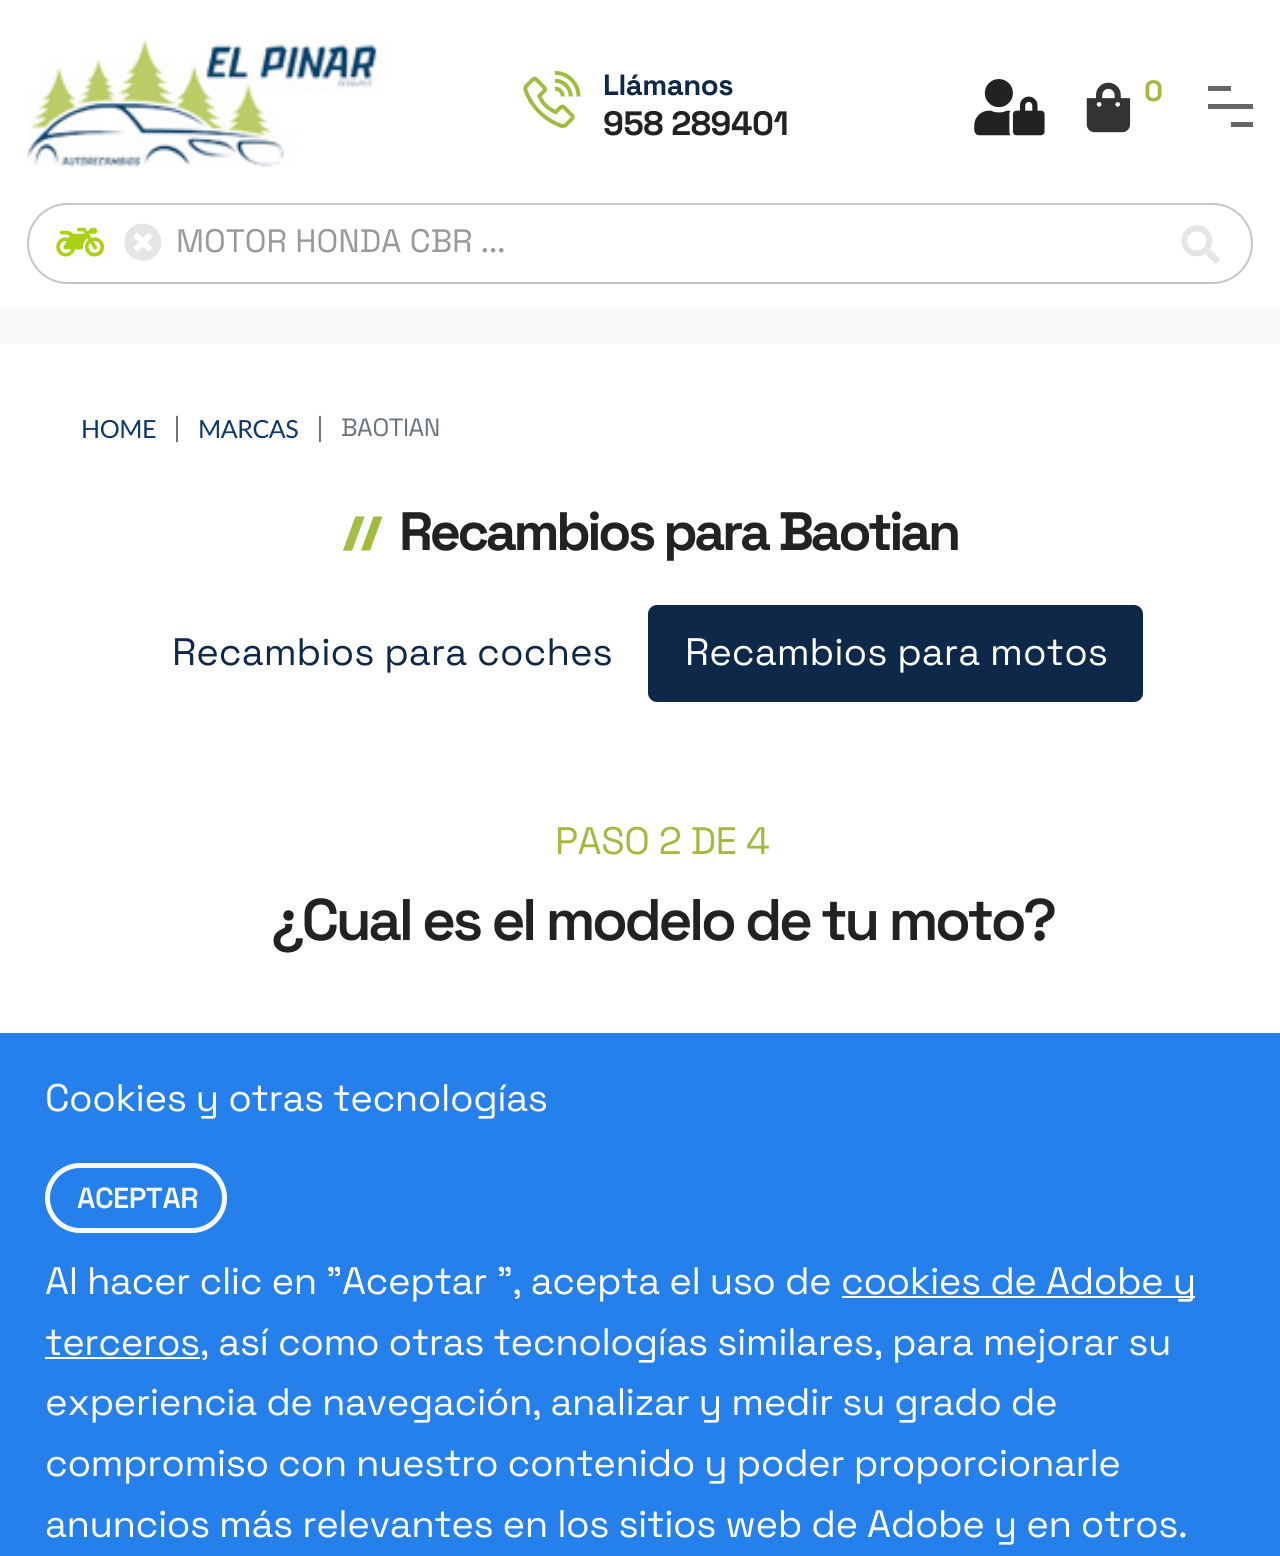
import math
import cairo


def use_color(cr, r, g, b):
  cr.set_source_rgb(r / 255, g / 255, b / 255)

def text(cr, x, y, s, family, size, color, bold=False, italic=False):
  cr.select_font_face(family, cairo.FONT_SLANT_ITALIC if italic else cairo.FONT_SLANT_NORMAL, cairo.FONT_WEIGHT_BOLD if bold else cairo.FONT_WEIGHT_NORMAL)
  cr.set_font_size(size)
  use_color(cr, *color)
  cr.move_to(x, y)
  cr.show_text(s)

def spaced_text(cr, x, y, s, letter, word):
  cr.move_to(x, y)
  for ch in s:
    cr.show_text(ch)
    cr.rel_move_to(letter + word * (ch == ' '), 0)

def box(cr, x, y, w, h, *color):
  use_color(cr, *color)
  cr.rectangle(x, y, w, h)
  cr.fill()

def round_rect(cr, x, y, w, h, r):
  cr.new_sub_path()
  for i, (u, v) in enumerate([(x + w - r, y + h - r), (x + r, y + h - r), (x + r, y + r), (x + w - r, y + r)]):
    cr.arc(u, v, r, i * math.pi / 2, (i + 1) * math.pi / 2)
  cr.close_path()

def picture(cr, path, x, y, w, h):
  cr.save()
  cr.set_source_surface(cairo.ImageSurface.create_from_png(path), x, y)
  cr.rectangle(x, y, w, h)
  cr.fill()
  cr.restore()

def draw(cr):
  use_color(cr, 255, 255, 255)
  cr.paint()
  picture(cr, "img_01.png", 27, 38, 360, 130)
  picture(cr, "img_02.png", 523, 70, 58, 58)
  picture(cr, "img_03.png", 974, 79, 71, 57)
  picture(cr, "img_04.png", 1086, 82, 45, 51)
  box(cr, 1208, 86, 23, 5, 102, 102, 102)
  box(cr, 1208, 104, 45, 5, 102, 102, 102)
  box(cr, 1231, 122, 22, 5, 102, 102, 102)
  round_rect(cr, 28, 204, 1224, 79, 39.5)
  use_color(cr, 196, 198, 200)
  cr.stroke()
  picture(cr, "img_05.png", 56, 227, 49, 30)
  picture(cr, "img_06.png", 124, 223, 38, 38)
  picture(cr, "img_07.png", 1181, 225, 39, 39)
  box(cr, 0, 308, 1280, 36, 250, 250, 250)
  use_color(cr, 160, 187, 62)
  cr.new_path()
  cr.move_to(373.5, 516.5)
  cr.line_to(382.5, 516.5)
  cr.line_to(370, 550.5)
  cr.line_to(361, 550.5)
  cr.close_path()
  cr.fill()
  use_color(cr, 179, 201, 101)
  cr.new_path()
  cr.move_to(355.5, 516.5)
  cr.line_to(364.5, 516.5)
  cr.line_to(352, 550.5)
  cr.line_to(343, 550.5)
  cr.close_path()
  cr.fill()
  cr.set_source_rgba(0.627, 0.733, 0.243, 0.8)
  cr.new_path()
  cr.move_to(355.5, 516.5)
  cr.line_to(364.5, 516.5)
  cr.line_to(352, 550.5)
  cr.line_to(343, 550.5)
  cr.close_path()
  cr.fill()
  use_color(cr, 13, 40, 73)
  round_rect(cr, 648, 605, 495, 97, 9)
  cr.fill()
  box(cr, 0, 1033, 1280, 523, 38, 128, 235)
  round_rect(cr, 47.5, 1165.5, 177, 65, 32.5)
  use_color(cr, 248, 249, 250)
  cr.set_line_width(5)
  cr.stroke()
  box(cr, 842, 1296, 353, 2, 255, 255, 255)
  box(cr, 45, 1357, 155, 2, 255, 255, 255)
  cr.select_font_face("Space Grotesk", cairo.FONT_SLANT_NORMAL, cairo.FONT_WEIGHT_BOLD)
  cr.set_font_size(29.25)
  use_color(cr, 13, 40, 73)
  spaced_text(cr, 603, 95, "Llámanos", -0.45, 0)
  cr.set_font_size(33.75)
  use_color(cr, 34, 34, 34)
  spaced_text(cr, 603, 135, "958 289401", -0.45, 0)
  cr.set_font_size(29.25)
  use_color(cr, 160, 187, 62)
  spaced_text(cr, 1144, 101, "0", -0.45, 0)
  text(cr, 176, 252, "MOTOR HONDA CBR ...", "Space Grotesk", 32.4, (153, 153, 153))
  cr.select_font_face("Lato")
  cr.set_font_size(25)
  use_color(cr, 13, 56, 110)
  spaced_text(cr, 81, 438, "HOME", -0.45, 0)
  cr.select_font_face("Space Grotesk")
  use_color(cr, 108, 117, 125)
  spaced_text(cr, 174, 436, "|", -0.45, 0)
  cr.select_font_face("Lato")
  use_color(cr, 13, 56, 110)
  spaced_text(cr, 198, 438, "MARCAS", -0.45, 0)
  cr.select_font_face("Space Grotesk")
  use_color(cr, 108, 117, 125)
  spaced_text(cr, 317, 436, "|", -0.45, 0)
  spaced_text(cr, 341, 436, "BAOTIAN", -0.45, 0)
  cr.select_font_face("Space Grotesk", cairo.FONT_SLANT_NORMAL, cairo.FONT_WEIGHT_BOLD)
  cr.set_font_size(54)
  use_color(cr, 34, 34, 34)
  spaced_text(cr, 399, 550, "Recambios para Baotian", -3.4, 0)
  text(cr, 172, 665, "Recambios para coches", "Space Grotesk", 38.25, (13, 40, 73))
  text(cr, 685, 665, "Recambios para motos", "Space Grotesk", 38.25, (255, 255, 255))
  use_color(cr, 160, 187, 62)
  spaced_text(cr, 555, 854, "PASO 2 DE 4", -0.45, 0)
  cr.select_font_face("Space Grotesk SemiBold")
  cr.set_font_size(58.5)
  use_color(cr, 34, 34, 34)
  spaced_text(cr, 271, 940, "¿Cual es el modelo de tu moto?", -3.4, 0)
  cr.select_font_face("Space Grotesk")
  cr.set_font_size(38.25)
  use_color(cr, 255, 255, 255)
  spaced_text(cr, 45, 1111, "Cookies y otras tecnologías", -0.45, 0)
  cr.select_font_face("Space Grotesk SemiBold")
  cr.set_font_size(29)
  use_color(cr, 248, 249, 250)
  spaced_text(cr, 77, 1208, "ACEPTAR", -0.45, 0)
  cr.select_font_face("Space Grotesk")
  cr.set_font_size(38.25)
  use_color(cr, 255, 255, 255)
  spaced_text(cr, 45, 1294, "Al hacer clic en \"Aceptar \", acepta el uso de", -0.45, 0)
  spaced_text(cr, 841, 1294, "cookies de Adobe y", -0.45, 0)
  spaced_text(cr, 45, 1355, "terceros, así como otras tecnologías similares, para mejorar su", -0.45, 0)
  spaced_text(cr, 45, 1415, "experiencia de navegación, analizar y medir su grado de", -0.45, 0)
  spaced_text(cr, 45, 1476, "compromiso con nuestro contenido y poder proporcionarle", -0.45, 0)
  spaced_text(cr, 45, 1537, "anuncios más relevantes en los sitios web de Adobe y en otros.", -0.45, 0)


surface = cairo.ImageSurface(cairo.FORMAT_RGB24, 1280, 1556)
cr = cairo.Context(surface)
options = cairo.FontOptions()
options.set_hint_metrics(cairo.HINT_METRICS_OFF)
options.set_hint_style(cairo.HINT_STYLE_NONE)
cr.set_font_options(options)
cr.set_miter_limit(4)
draw(cr)
surface.write_to_png("out.png")
